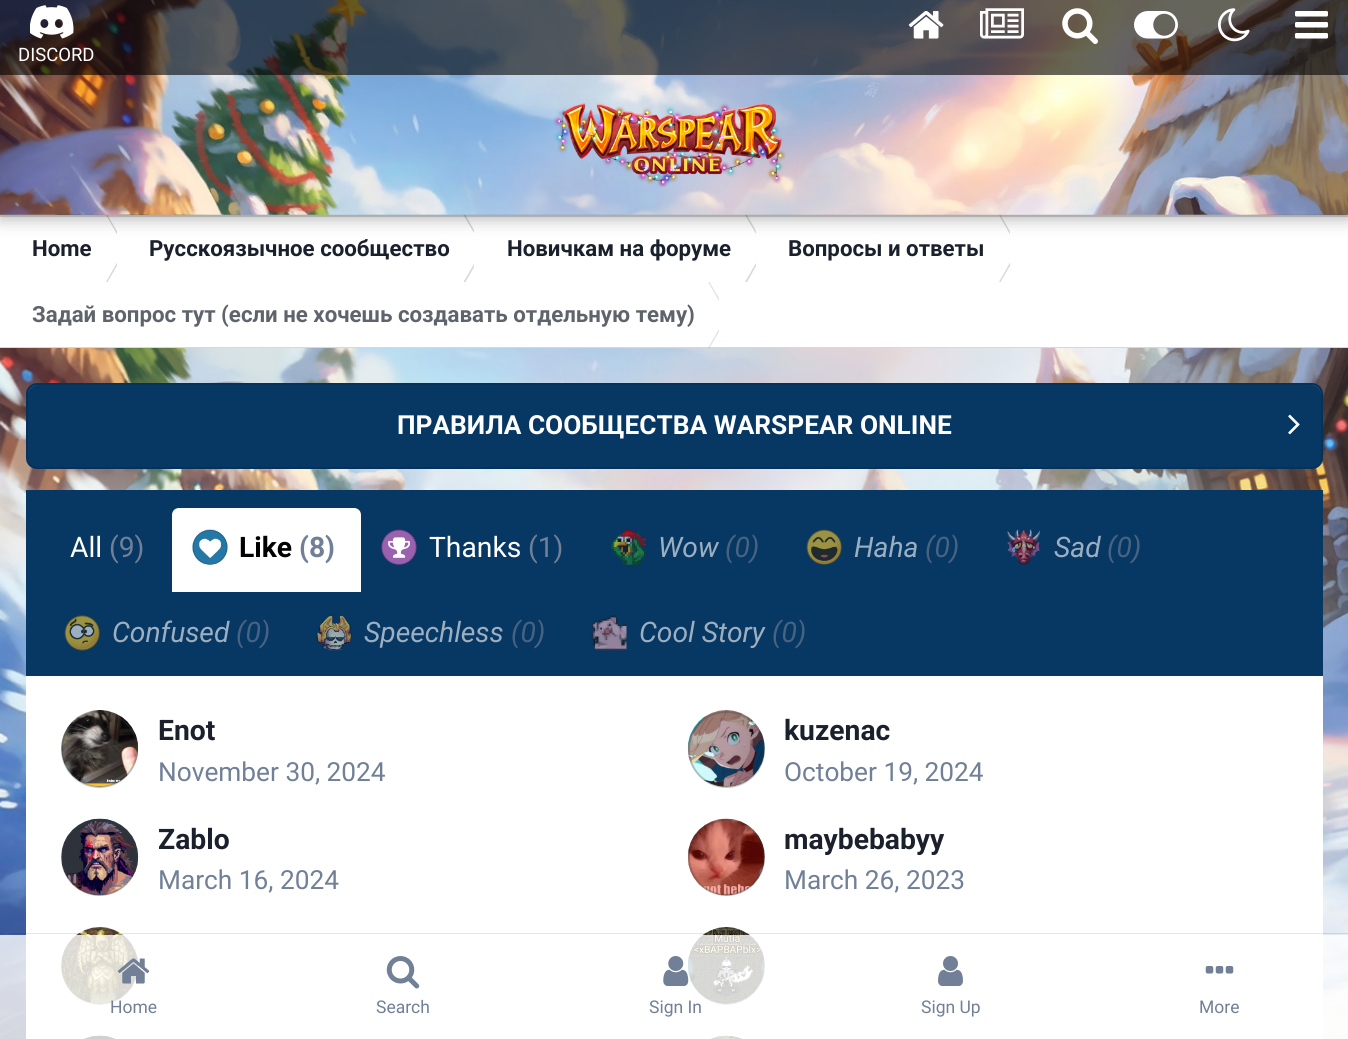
import math
import cairo


def use_color(cr, r, g, b):
  cr.set_source_rgb(r / 255, g / 255, b / 255)

def text(cr, x, y, s, family, size, color, bold=False, italic=False):
  cr.select_font_face(family, cairo.FONT_SLANT_ITALIC if italic else cairo.FONT_SLANT_NORMAL, cairo.FONT_WEIGHT_BOLD if bold else cairo.FONT_WEIGHT_NORMAL)
  cr.set_font_size(size)
  use_color(cr, *color)
  cr.move_to(x, y)
  cr.show_text(s)

def box(cr, x, y, w, h, *color):
  use_color(cr, *color)
  cr.rectangle(x, y, w, h)
  cr.fill()

def round_rect(cr, x, y, w, h, r):
  cr.new_sub_path()
  for i, (u, v) in enumerate([(x + w - r, y + h - r), (x + r, y + h - r), (x + r, y + r), (x + w - r, y + r)]):
    cr.arc(u, v, r, i * math.pi / 2, (i + 1) * math.pi / 2)
  cr.close_path()

def shadow(cr, x, y, w, h, r, blur, alpha):
  cr.push_group_with_content(cairo.CONTENT_ALPHA)
  cr.set_operator(cairo.OPERATOR_SOURCE)
  for i in range(15, -16, -2):
    e = blur * i / 6
    if min(w, h) + 2 * e > 0:
      cr.set_source_rgba(0, 0, 0, alpha * math.erfc((i - 1) / 8.5) / 2)
      round_rect(cr, x - e, y - e, w + 2 * e, h + 2 * e, max(0, min(r + e + blur * .6, min(w, h) / 2 + e)))
      cr.fill()
  cr.mask(cr.pop_group())

def picture(cr, path, x, y, w, h):
  cr.save()
  cr.set_source_surface(cairo.ImageSurface.create_from_png(path), x, y)
  cr.rectangle(x, y, w, h)
  cr.fill()
  cr.restore()

def draw(cr):
  use_color(cr, 255, 255, 255)
  cr.paint()
  picture(cr, "img_01.png", 0, 214, 1348, 825)
  box(cr, 0, 215, 1348, 133, 255, 255, 255)
  cr.save()
  cr.rectangle(0, 215, 117, 67)
  cr.clip()
  use_color(cr, 215, 216, 217)
  cr.new_path()
  cr.move_to(106, 215)
  cr.line_to(107.5, 215)
  cr.line_to(127, 248.5)
  cr.line_to(125, 248.5)
  cr.close_path()
  cr.fill()
  cr.restore()
  cr.save()
  cr.rectangle(117, 215, 357, 67)
  cr.clip()
  use_color(cr, 215, 216, 217)
  cr.new_path()
  cr.move_to(463.5, 215)
  cr.line_to(465.5, 215)
  cr.line_to(484.5, 248.5)
  cr.line_to(483, 248.5)
  cr.close_path()
  cr.fill()
  cr.restore()
  cr.save()
  cr.rectangle(474, 215, 282, 67)
  cr.clip()
  use_color(cr, 215, 216, 217)
  cr.new_path()
  cr.move_to(745, 215)
  cr.line_to(747, 215)
  cr.line_to(766, 248.5)
  cr.line_to(764.5, 248.5)
  cr.close_path()
  cr.fill()
  cr.restore()
  cr.save()
  cr.rectangle(756, 215, 254, 67)
  cr.clip()
  use_color(cr, 215, 216, 217)
  cr.new_path()
  cr.move_to(999, 215)
  cr.line_to(1000.5, 215)
  cr.line_to(1020, 248.5)
  cr.line_to(1018, 248.5)
  cr.close_path()
  cr.fill()
  cr.restore()
  cr.set_source_rgba(0.208, 0.235, 0.255, 0.2)
  cr.rectangle(0, 215, 1348, 2)
  cr.fill()
  use_color(cr, 0, 0, 0)
  shadow(cr, 0, -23, 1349, 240, 0, 9, 0.35)
  picture(cr, "img_02.png", 0, 0, 1348, 215)
  cr.set_source_rgba(0, 0, 0, 0.6)
  cr.rectangle(0, 0, 1348, 75)
  cr.fill()
  picture(cr, "img_03.png", 908, 11, 36, 28)
  picture(cr, "img_04.png", 980, 8, 44, 31)
  picture(cr, "img_05.png", 1062, 8, 36, 36)
  picture(cr, "img_06.png", 1134, 11, 44, 28)
  picture(cr, "img_07.png", 1218, 8, 32, 34)
  picture(cr, "img_08.png", 1295, 11, 33, 28)
  picture(cr, "img_09.png", 30, 5, 44, 34)
  picture(cr, "img_10.png", 553, 103, 233, 84)
  cr.save()
  cr.rectangle(0, 282, 719, 66)
  cr.clip()
  use_color(cr, 227, 228, 228)
  cr.new_path()
  cr.move_to(708, 348)
  cr.line_to(709.5, 348)
  cr.line_to(729, 315)
  cr.line_to(727, 315)
  cr.close_path()
  cr.fill()
  cr.restore()
  cr.set_source_rgba(0.208, 0.235, 0.255, 0.2)
  cr.rectangle(0, 347, 1348, 1)
  cr.fill()
  cr.save()
  cr.rectangle(0, 215, 117, 67)
  cr.clip()
  use_color(cr, 215, 216, 217)
  cr.new_path()
  cr.move_to(106, 282)
  cr.line_to(107.5, 282)
  cr.line_to(127, 248.5)
  cr.line_to(125, 248.5)
  cr.close_path()
  cr.fill()
  cr.restore()
  cr.save()
  cr.rectangle(117, 215, 357, 67)
  cr.clip()
  use_color(cr, 215, 216, 217)
  cr.new_path()
  cr.move_to(463.5, 282)
  cr.line_to(465.5, 282)
  cr.line_to(484.5, 248.5)
  cr.line_to(483, 248.5)
  cr.close_path()
  cr.fill()
  cr.restore()
  cr.save()
  cr.rectangle(474, 215, 282, 67)
  cr.clip()
  use_color(cr, 215, 216, 217)
  cr.new_path()
  cr.move_to(745, 282)
  cr.line_to(747, 282)
  cr.line_to(766, 248.5)
  cr.line_to(764.5, 248.5)
  cr.close_path()
  cr.fill()
  cr.restore()
  cr.save()
  cr.rectangle(756, 215, 254, 67)
  cr.clip()
  use_color(cr, 215, 216, 217)
  cr.new_path()
  cr.move_to(999, 282)
  cr.line_to(1000.5, 282)
  cr.line_to(1020, 248.5)
  cr.line_to(1018, 248.5)
  cr.close_path()
  cr.fill()
  cr.restore()
  cr.save()
  cr.rectangle(0, 282, 719, 66)
  cr.clip()
  use_color(cr, 227, 228, 228)
  cr.new_path()
  cr.move_to(708, 282)
  cr.line_to(709.5, 282)
  cr.line_to(729, 315)
  cr.line_to(727, 315)
  cr.close_path()
  cr.fill()
  cr.restore()
  use_color(cr, 7, 55, 99)
  round_rect(cr, 26, 383, 1297, 86, 11)
  cr.fill()
  use_color(cr, 32, 75, 115)
  cr.new_path()
  cr.move_to(37, 387)
  cr.line_to(1312, 387)
  cr.curve_to(1317, 387, 1321, 391, 1321, 396)
  cr.line_to(1321, 394)
  cr.curve_to(1321, 389, 1317, 385, 1312, 385)
  cr.line_to(37, 385)
  cr.curve_to(32, 385, 28, 389, 28, 394)
  cr.line_to(28, 396)
  cr.curve_to(28, 391, 32, 387, 37, 387)
  cr.close_path()
  cr.fill()
  round_rect(cr, 27, 384, 1295, 84, 10)
  cr.set_source_rgba(0, 0, 0, 0.1)
  cr.stroke()
  use_color(cr, 7, 55, 99)
  round_rect(cr, 28, 385, 1293, 82, 11)
  cr.fill()
  picture(cr, "img_11.png", 1288, 414, 12, 21)
  box(cr, 26, 490, 1297, 186, 7, 55, 99)
  use_color(cr, 255, 255, 255)
  cr.new_path()
  cr.move_to(179, 508)
  cr.line_to(354, 508)
  cr.curve_to(358, 508, 361, 511, 361, 515)
  cr.line_to(361, 592)
  cr.line_to(172, 592)
  cr.line_to(172, 515)
  cr.curve_to(172, 511, 175, 508, 179, 508)
  cr.close_path()
  cr.fill()
  picture(cr, "img_12.png", 192, 529, 36, 36)
  picture(cr, "img_13.png", 381, 529, 36, 36)
  picture(cr, "img_14.png", 610, 529, 36, 36)
  picture(cr, "img_15.png", 806, 529, 36, 36)
  picture(cr, "img_16.png", 1007, 529, 34, 36)
  picture(cr, "img_17.png", 64, 615, 36, 36)
  picture(cr, "img_18.png", 316, 615, 36, 36)
  picture(cr, "img_19.png", 591, 615, 36, 36)
  box(cr, 26, 676, 1297, 363, 255, 255, 255)
  picture(cr, "img_20.png", 61, 710, 78, 77)
  cr.arc(99.5, 749.5, 37.5, 0, 2 * math.pi)
  cr.set_source_rgba(0.208, 0.235, 0.255, 0.3)
  cr.stroke()
  picture(cr, "img_21.png", 687, 710, 78, 77)
  cr.arc(726.5, 749.5, 37.5, 0, 2 * math.pi)
  cr.stroke()
  picture(cr, "img_22.png", 61, 818, 78, 78)
  cr.arc(99.5, 857.5, 37.5, 0, 2 * math.pi)
  cr.stroke()
  picture(cr, "img_23.png", 687, 818, 78, 78)
  cr.arc(726.5, 857.5, 37.5, 0, 2 * math.pi)
  cr.stroke()
  picture(cr, "img_24.png", 61, 927, 78, 77)
  cr.arc(99.5, 966.5, 37.5, 0, 2 * math.pi)
  cr.stroke()
  picture(cr, "img_25.png", 687, 927, 78, 77)
  cr.arc(726.5, 966.5, 37.5, 0, 2 * math.pi)
  cr.stroke()
  picture(cr, "img_26.png", 84, 1035, 32, 4)
  round_rect(cr, 62, 1037, 75, 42, 37.5)
  cr.stroke()
  picture(cr, "img_27.png", 710, 1035, 32, 4)
  round_rect(cr, 689, 1037, 75, 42, 37.5)
  cr.stroke()
  cr.set_source_rgba(0, 0, 0, 0.1)
  cr.rectangle(0, 933, 1348, 1)
  cr.fill()
  cr.set_source_rgba(1, 1, 1, 0.8)
  cr.rectangle(0, 935, 1348, 104)
  cr.fill()
  picture(cr, "img_28.png", 117, 958, 33, 26)
  picture(cr, "img_29.png", 386, 956, 34, 33)
  picture(cr, "img_30.png", 663, 956, 26, 30)
  picture(cr, "img_31.png", 938, 956, 25, 30)
  picture(cr, "img_32.png", 1205, 966, 29, 8)
  text(cr, 18, 61, "DISCORD", "Roboto", 18.5, (255, 255, 255))
  text(cr, 32, 256, "Home", "Roboto", 22.25, (26, 32, 44), bold=True)
  text(cr, 149, 256, "Русскоязычное сообщество", "Roboto", 22.25, (26, 32, 44), bold=True)
  text(cr, 507, 256, "Новичкам на форуме", "Roboto", 22.25, (26, 32, 44), bold=True)
  text(cr, 788, 256, "Вопросы и ответы", "Roboto", 22.25, (26, 32, 44), bold=True)
  text(cr, 32, 322, "Задай вопрос тут (если не хочешь создавать отдельную тему)", "Roboto", 22.25, (95, 99, 107), bold=True)
  text(cr, 397, 434, "ПРАВИЛА СООБЩЕСТВА WARSPEAR ONLINE", "Roboto", 26.25, (255, 255, 255), bold=True)
  text(cr, 70, 557, "All", "Roboto", 28.25, (255, 255, 255))
  text(cr, 109, 557, "(9)", "Roboto", 28.25, (113, 128, 150))
  text(cr, 239, 557, "Like", "Roboto", 28.25, (0, 0, 0), bold=True)
  text(cr, 299, 557, "(8)", "Roboto", 28.25, (113, 128, 150), bold=True)
  text(cr, 429, 557, "Thanks", "Roboto", 28.25, (255, 255, 255))
  text(cr, 528, 557, "(1)", "Roboto", 28.25, (113, 128, 150))
  text(cr, 658, 557, "Wow", "Roboto", 28.25, (156, 175, 193), italic=True)
  text(cr, 725, 557, "(0)", "Roboto", 28.25, (71, 99, 130), italic=True)
  text(cr, 854, 557, "Haha", "Roboto", 28.25, (156, 175, 193), italic=True)
  text(cr, 925, 557, "(0)", "Roboto", 28.25, (71, 99, 130), italic=True)
  text(cr, 1054, 557, "Sad", "Roboto", 28.25, (156, 175, 193), italic=True)
  text(cr, 1107, 557, "(0)", "Roboto", 28.25, (71, 99, 130), italic=True)
  text(cr, 112, 642, "Confused", "Roboto", 28.25, (156, 175, 193), italic=True)
  text(cr, 236, 642, "(0)", "Roboto", 28.25, (71, 99, 130), italic=True)
  text(cr, 364, 642, "Speechless", "Roboto", 28.25, (156, 175, 193), italic=True)
  text(cr, 511, 642, "(0)", "Roboto", 28.25, (71, 99, 130), italic=True)
  text(cr, 639, 642, "Cool Story", "Roboto", 28.25, (156, 175, 193), italic=True)
  text(cr, 772, 642, "(0)", "Roboto", 28.25, (71, 99, 130), italic=True)
  text(cr, 158, 740, "Enot", "Roboto", 28.25, (26, 32, 44), bold=True)
  text(cr, 158, 781, "November 30, 2024", "Roboto", 26.25, (113, 128, 150))
  text(cr, 784, 740, "kuzenac", "Roboto", 28.25, (26, 32, 44), bold=True)
  text(cr, 784, 781, "October 19, 2024", "Roboto", 26.25, (113, 128, 150))
  text(cr, 158, 849, "Zablo", "Roboto", 28.25, (26, 32, 44), bold=True)
  text(cr, 158, 889, "March 16, 2024", "Roboto", 26.25, (113, 128, 150))
  text(cr, 784, 849, "maybebabyy", "Roboto", 28.25, (26, 32, 44), bold=True)
  text(cr, 784, 889, "March 26, 2023", "Roboto", 26.25, (113, 128, 150))
  text(cr, 110, 1013, "Home", "Roboto", 17.5, (113, 128, 150))
  text(cr, 376, 1013, "Search", "Roboto", 17.5, (113, 128, 150))
  text(cr, 649, 1013, "Sign In", "Roboto", 17.5, (113, 128, 150))
  text(cr, 921, 1013, "Sign Up", "Roboto", 17.5, (113, 128, 150))
  text(cr, 1199, 1013, "More", "Roboto", 17.5, (113, 128, 150))


surface = cairo.ImageSurface(cairo.FORMAT_RGB24, 1348, 1039)
cr = cairo.Context(surface)
options = cairo.FontOptions()
options.set_hint_metrics(cairo.HINT_METRICS_OFF)
options.set_hint_style(cairo.HINT_STYLE_NONE)
cr.set_font_options(options)
cr.set_miter_limit(4)
draw(cr)
surface.write_to_png("out.png")
